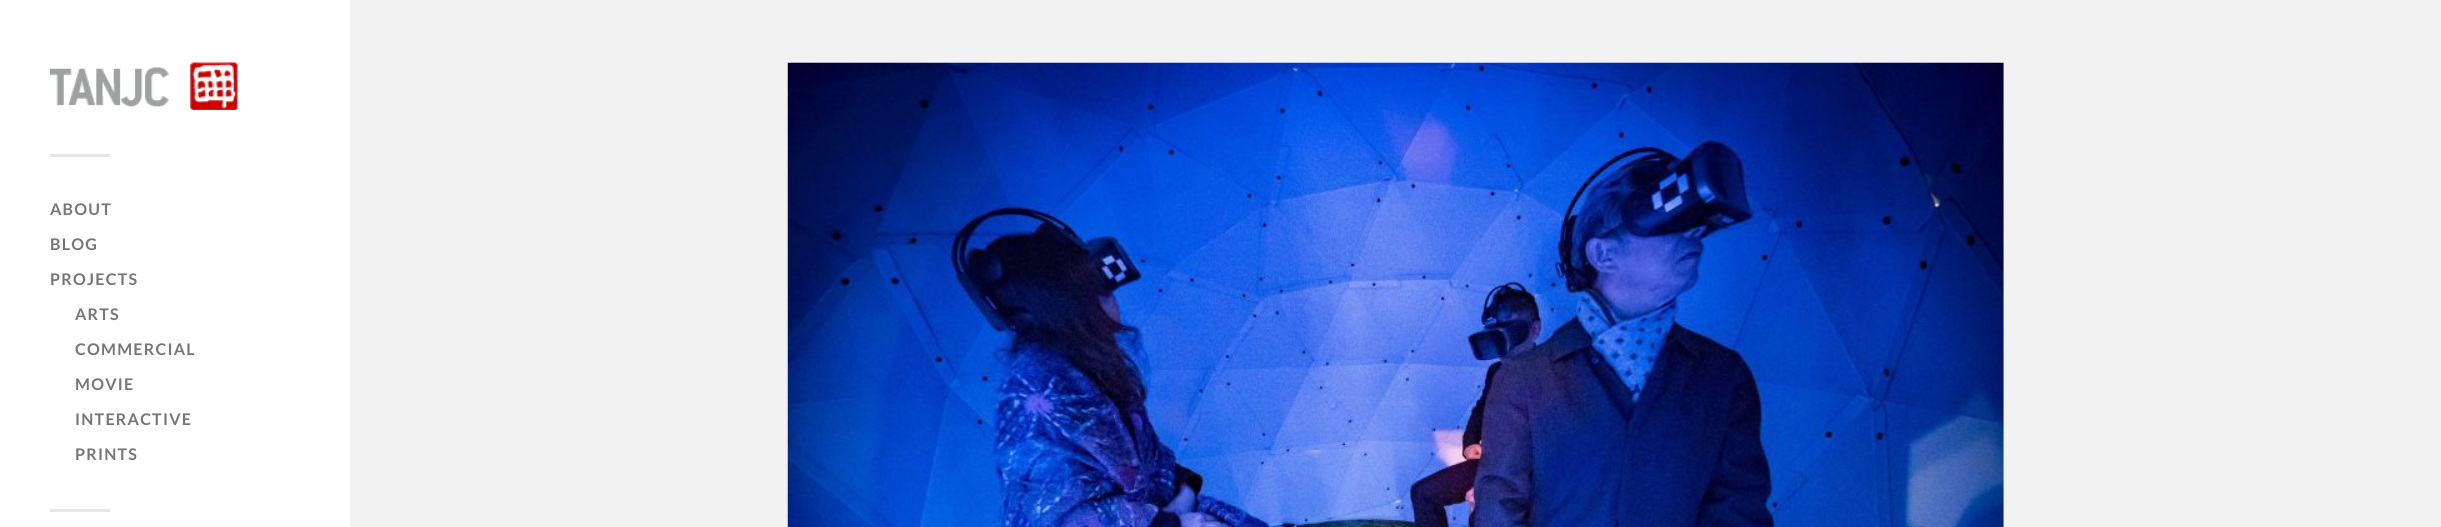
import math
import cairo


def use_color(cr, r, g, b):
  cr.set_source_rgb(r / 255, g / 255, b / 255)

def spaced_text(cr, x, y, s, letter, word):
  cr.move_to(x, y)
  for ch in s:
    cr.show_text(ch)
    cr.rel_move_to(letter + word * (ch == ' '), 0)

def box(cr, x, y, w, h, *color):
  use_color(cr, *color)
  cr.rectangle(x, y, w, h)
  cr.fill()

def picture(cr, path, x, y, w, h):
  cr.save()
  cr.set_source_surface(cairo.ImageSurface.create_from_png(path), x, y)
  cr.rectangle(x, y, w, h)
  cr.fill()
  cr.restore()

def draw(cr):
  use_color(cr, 242, 242, 242)
  cr.paint()
  box(cr, 0, 0, 350, 527, 255, 255, 255)
  picture(cr, "img_01.png", 50, 62, 188, 48)
  box(cr, 50, 154, 60, 3, 231, 231, 231)
  box(cr, 50, 509, 60, 3, 231, 231, 231)
  box(cr, 2003, 63, 1, 464, 255, 255, 255)
  picture(cr, "img_02.png", 787, 62, 1217, 465)
  cr.select_font_face("Lato", cairo.FONT_SLANT_NORMAL, cairo.FONT_WEIGHT_BOLD)
  cr.set_font_size(16)
  use_color(cr, 118, 118, 118)
  spaced_text(cr, 50, 215, "ABOUT", 1.25, 0)
  spaced_text(cr, 50, 250, "BLOG", 1.25, 0)
  spaced_text(cr, 50, 285, "PROJECTS", 1.25, 0)
  spaced_text(cr, 75, 320, "ARTS", 1.25, 0)
  spaced_text(cr, 75, 355, "COMMERCIAL", 1.25, 0)
  spaced_text(cr, 75, 390, "MOVIE", 1.25, 0)
  spaced_text(cr, 75, 425, "INTERACTIVE", 1.25, 0)
  spaced_text(cr, 75, 460, "PRINTS", 1.25, 0)


surface = cairo.ImageSurface(cairo.FORMAT_RGB24, 2441, 527)
cr = cairo.Context(surface)
options = cairo.FontOptions()
options.set_hint_metrics(cairo.HINT_METRICS_OFF)
options.set_hint_style(cairo.HINT_STYLE_NONE)
cr.set_font_options(options)
cr.set_miter_limit(4)
draw(cr)
surface.write_to_png("out.png")
